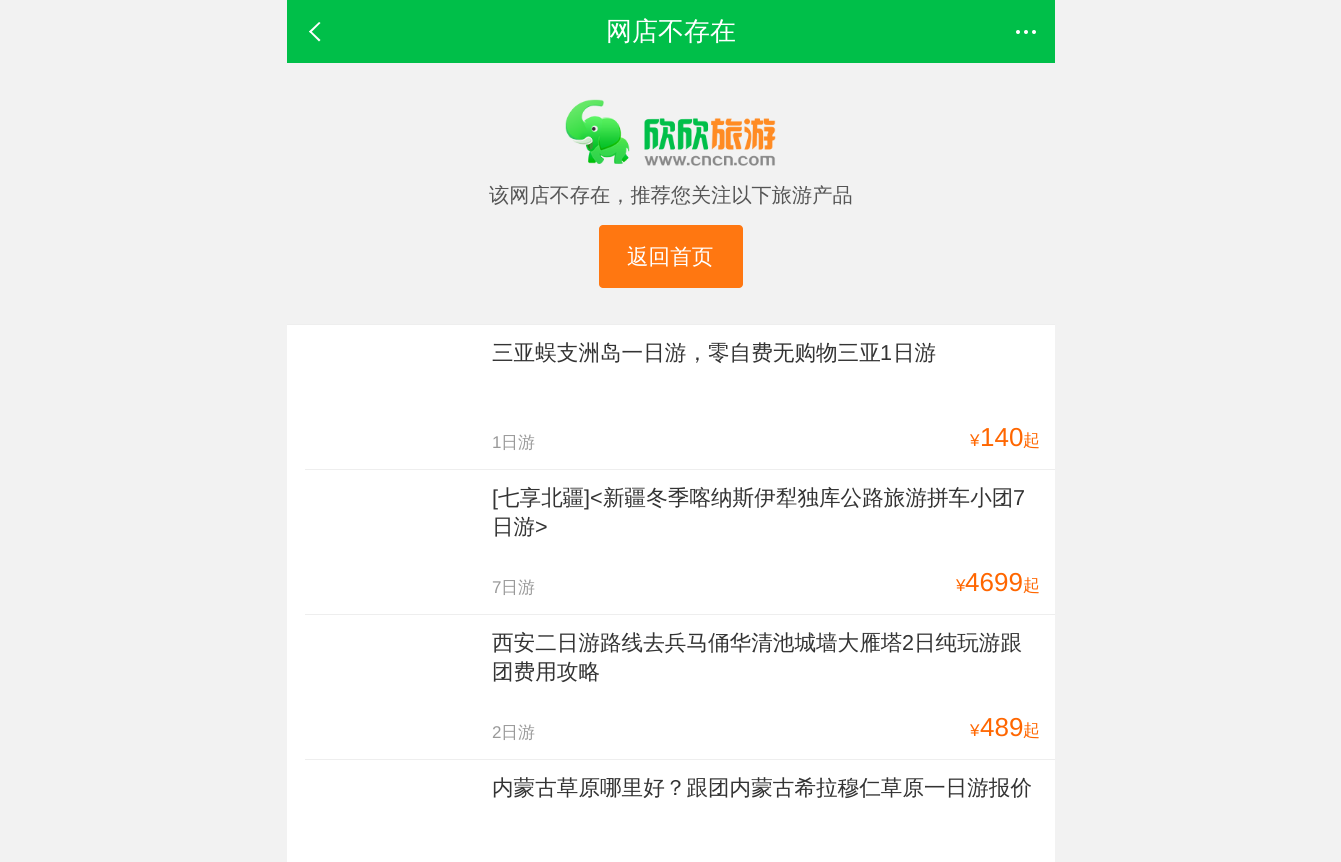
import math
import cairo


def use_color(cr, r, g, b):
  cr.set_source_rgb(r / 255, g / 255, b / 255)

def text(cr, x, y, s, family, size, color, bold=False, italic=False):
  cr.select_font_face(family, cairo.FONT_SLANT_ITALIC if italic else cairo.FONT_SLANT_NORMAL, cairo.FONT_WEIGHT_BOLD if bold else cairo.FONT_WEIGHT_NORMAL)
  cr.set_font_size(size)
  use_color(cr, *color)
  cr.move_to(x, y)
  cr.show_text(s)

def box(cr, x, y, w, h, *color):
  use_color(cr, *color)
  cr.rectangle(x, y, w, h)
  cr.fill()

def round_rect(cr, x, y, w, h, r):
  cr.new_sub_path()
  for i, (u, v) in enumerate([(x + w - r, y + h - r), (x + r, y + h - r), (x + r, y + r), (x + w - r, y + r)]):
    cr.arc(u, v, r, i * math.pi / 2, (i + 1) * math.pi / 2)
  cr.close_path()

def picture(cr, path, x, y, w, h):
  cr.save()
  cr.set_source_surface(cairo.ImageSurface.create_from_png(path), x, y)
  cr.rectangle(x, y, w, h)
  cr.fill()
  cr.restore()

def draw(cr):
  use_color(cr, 242, 242, 242)
  cr.paint()
  box(cr, 287, 0, 768, 63, 0, 191, 73)
  use_color(cr, 255, 255, 255)
  cr.new_path()
  cr.move_to(319, 41.5)
  cr.line_to(309, 31.5)
  cr.line_to(310.5, 30.5)
  cr.line_to(320.5, 40)
  cr.close_path()
  cr.fill()
  cr.new_path()
  cr.move_to(310.5, 33)
  cr.line_to(309, 31.5)
  cr.line_to(319, 22)
  cr.line_to(320.5, 23)
  cr.close_path()
  cr.fill()
  cr.arc(1018, 32, 2, 0, 2 * math.pi)
  cr.fill()
  cr.arc(1026, 32, 2, 0, 2 * math.pi)
  cr.fill()
  cr.arc(1034, 32, 2, 0, 2 * math.pi)
  cr.fill()
  picture(cr, "img_01.png", 565, 99, 211, 67)
  use_color(cr, 255, 119, 17)
  round_rect(cr, 599, 225, 144, 63, 4)
  cr.fill()
  box(cr, 287, 325, 768, 537, 255, 255, 255)
  box(cr, 287, 324, 768, 1, 238, 238, 238)
  box(cr, 305, 469, 750, 1, 238, 238, 238)
  box(cr, 305, 614, 750, 1, 238, 238, 238)
  box(cr, 305, 759, 750, 1, 238, 238, 238)
  text(cr, 606, 40, "网店不存在", "WenQuanYi Zen Hei Medium", 26, (255, 255, 255))
  text(cr, 489, 202, "该网店不存在，推荐您关注以下旅游产品", "WenQuanYi Zen Hei Medium", 20.2, (85, 85, 85))
  text(cr, 627, 264, "返回首页", "WenQuanYi Zen Hei Medium", 21.6, (255, 255, 255))
  text(cr, 492, 360, "三亚蜈支洲岛一日游，零自费无购物三亚", "WenQuanYi Zen Hei Medium", 21.6, (51, 51, 51))
  text(cr, 880, 360, "1", "Liberation Sans", 21.6, (51, 51, 51))
  text(cr, 893, 360, "日游", "WenQuanYi Zen Hei Medium", 21.6, (51, 51, 51))
  text(cr, 492, 448, "1", "Liberation Sans", 17, (153, 153, 153))
  text(cr, 501, 448, "日游", "WenQuanYi Zen Hei Medium", 17, (153, 153, 153))
  text(cr, 970, 446, "¥", "Liberation Sans", 17, (255, 102, 0))
  text(cr, 980, 446, "140", "Liberation Sans", 26, (255, 102, 0))
  text(cr, 1023, 446, "起", "WenQuanYi Zen Hei Medium", 17, (255, 102, 0))
  text(cr, 492, 505, "[", "Liberation Sans", 21.6, (51, 51, 51))
  text(cr, 498, 505, "七享北疆", "WenQuanYi Zen Hei Medium", 21.6, (51, 51, 51))
  text(cr, 584, 505, "]<", "Liberation Sans", 21.6, (51, 51, 51))
  text(cr, 603, 505, "新疆冬季喀纳斯伊犁独库公路旅游拼车小团", "WenQuanYi Zen Hei Medium", 21.6, (51, 51, 51))
  text(cr, 1013, 505, "7", "Liberation Sans", 21.6, (51, 51, 51))
  text(cr, 492, 534, "日游", "WenQuanYi Zen Hei Medium", 21.6, (51, 51, 51))
  text(cr, 535, 534, ">", "Liberation Sans", 21.6, (51, 51, 51))
  text(cr, 492, 593, "7", "Liberation Sans", 17, (153, 153, 153))
  text(cr, 501, 593, "日游", "WenQuanYi Zen Hei Medium", 17, (153, 153, 153))
  text(cr, 956, 591, "¥", "Liberation Sans", 17, (255, 102, 0))
  text(cr, 965, 591, "4699", "Liberation Sans", 26, (255, 102, 0))
  text(cr, 1023, 591, "起", "WenQuanYi Zen Hei Medium", 17, (255, 102, 0))
  text(cr, 492, 650, "西安二日游路线去兵马俑华清池城墙大雁塔", "WenQuanYi Zen Hei Medium", 21.6, (51, 51, 51))
  text(cr, 902, 650, "2", "Liberation Sans", 21.6, (51, 51, 51))
  text(cr, 914, 650, "日纯玩游跟", "WenQuanYi Zen Hei Medium", 21.6, (51, 51, 51))
  text(cr, 492, 679, "团费用攻略", "WenQuanYi Zen Hei Medium", 21.6, (51, 51, 51))
  text(cr, 492, 738, "2", "Liberation Sans", 17, (153, 153, 153))
  text(cr, 501, 738, "日游", "WenQuanYi Zen Hei Medium", 17, (153, 153, 153))
  text(cr, 970, 736, "¥", "Liberation Sans", 17, (255, 102, 0))
  text(cr, 980, 736, "489", "Liberation Sans", 26, (255, 102, 0))
  text(cr, 1023, 736, "起", "WenQuanYi Zen Hei Medium", 17, (255, 102, 0))
  text(cr, 492, 795, "内蒙古草原哪里好？跟团内蒙古希拉穆仁草原一日游报价", "WenQuanYi Zen Hei Medium", 21.6, (51, 51, 51))


surface = cairo.ImageSurface(cairo.FORMAT_RGB24, 1341, 862)
cr = cairo.Context(surface)
options = cairo.FontOptions()
options.set_hint_metrics(cairo.HINT_METRICS_OFF)
options.set_hint_style(cairo.HINT_STYLE_NONE)
cr.set_font_options(options)
cr.set_miter_limit(4)
draw(cr)
surface.write_to_png("out.png")
